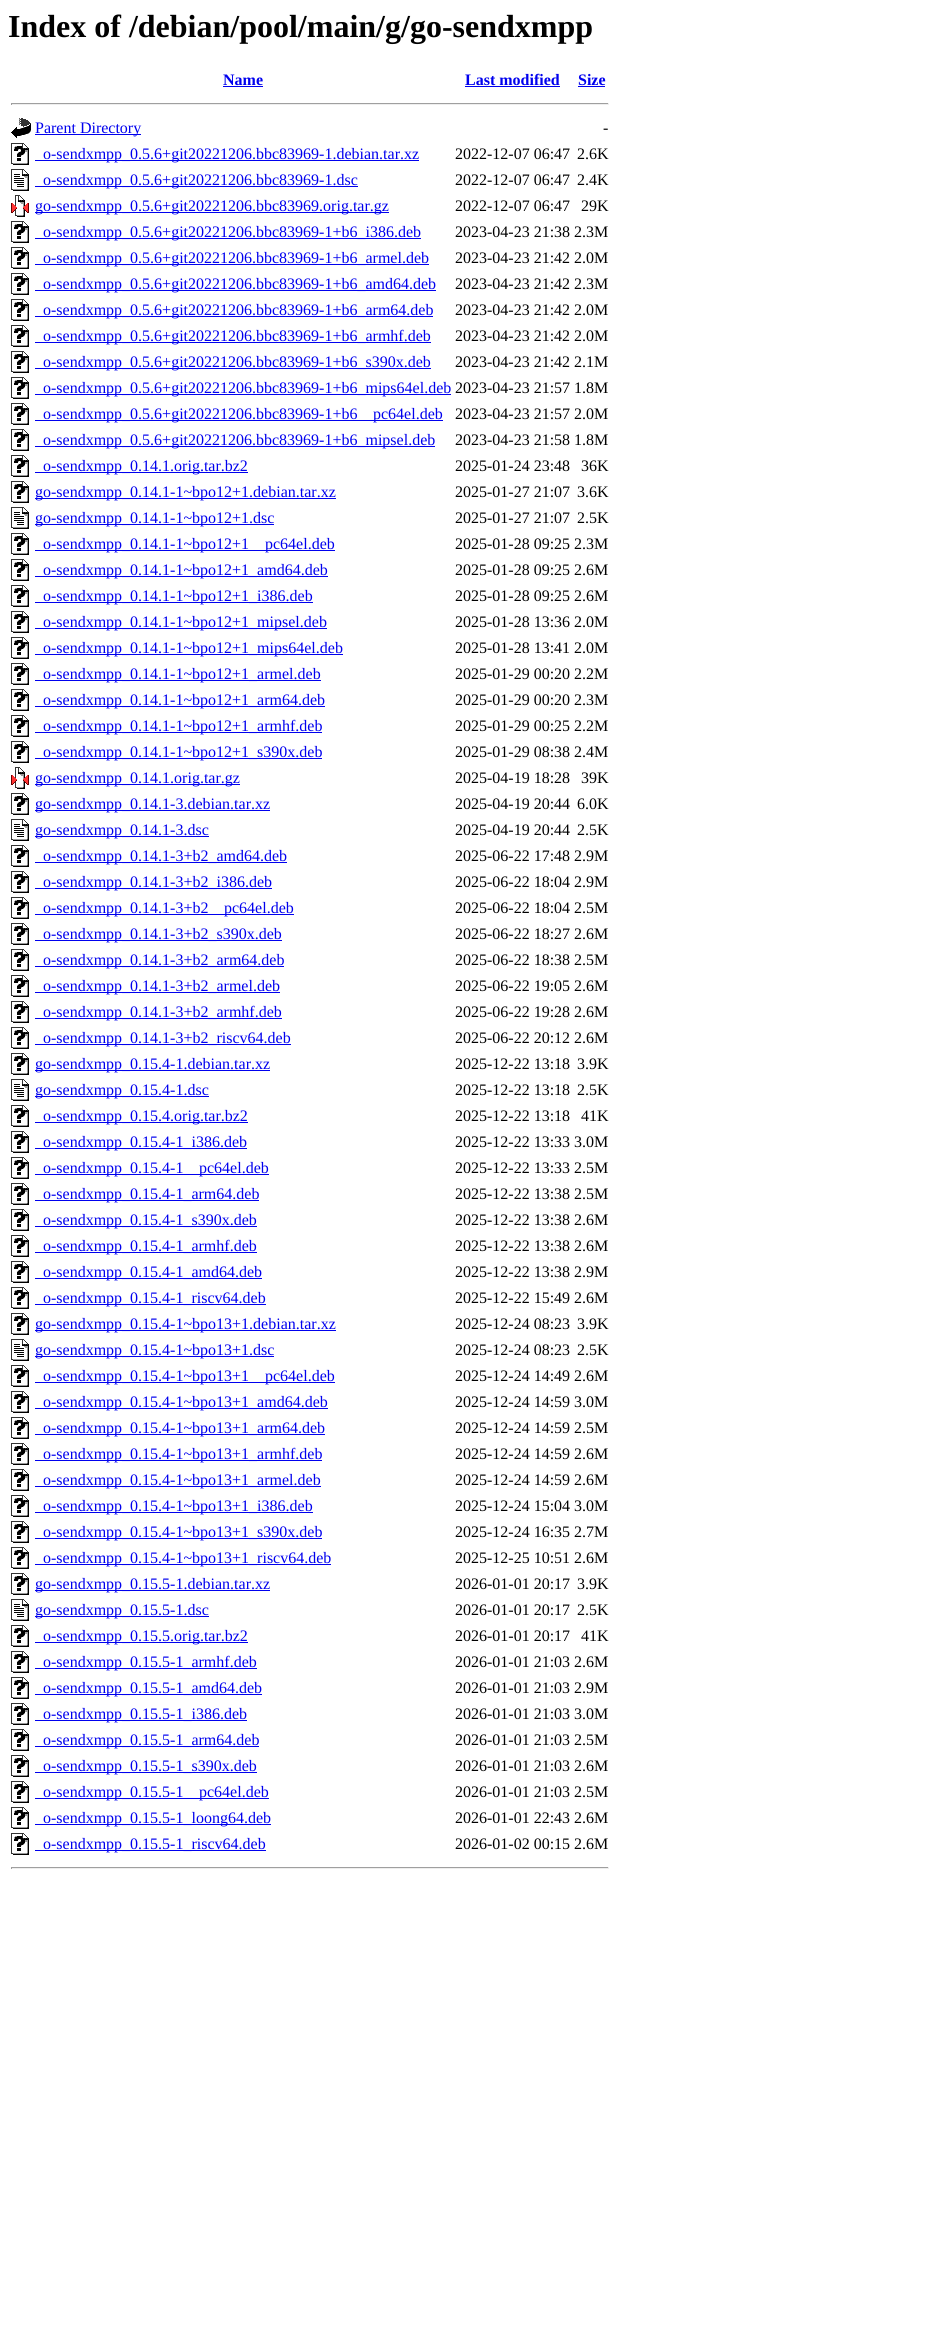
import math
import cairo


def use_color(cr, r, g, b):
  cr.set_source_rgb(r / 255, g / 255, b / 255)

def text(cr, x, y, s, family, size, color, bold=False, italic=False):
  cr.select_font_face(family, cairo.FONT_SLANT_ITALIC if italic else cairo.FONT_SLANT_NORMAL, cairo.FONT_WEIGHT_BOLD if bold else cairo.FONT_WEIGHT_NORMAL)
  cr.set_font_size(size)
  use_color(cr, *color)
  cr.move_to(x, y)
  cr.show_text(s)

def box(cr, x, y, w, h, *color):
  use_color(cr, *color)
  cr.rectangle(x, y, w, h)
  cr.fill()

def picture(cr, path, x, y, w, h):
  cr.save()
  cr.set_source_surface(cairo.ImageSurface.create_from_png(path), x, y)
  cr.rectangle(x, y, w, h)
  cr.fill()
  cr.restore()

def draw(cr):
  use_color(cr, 255, 255, 255)
  cr.paint()
  box(cr, 223, 86, 40, 1, 0, 0, 238)
  box(cr, 465, 86, 95, 1, 0, 0, 238)
  box(cr, 578, 86, 27, 1, 0, 0, 238)
  box(cr, 11, 103, 598, 1, 159, 159, 159)
  box(cr, 608, 103, 1, 2, 238, 238, 238)
  box(cr, 11, 104, 598, 1, 238, 238, 238)
  box(cr, 11, 103, 1, 2, 159, 159, 159)
  picture(cr, "img_01.png", 11, 118, 20, 20)
  box(cr, 35, 134, 106, 1, 0, 0, 238)
  picture(cr, "img_02.png", 11, 143, 18, 22)
  box(cr, 35, 160, 384, 1, 0, 0, 238)
  picture(cr, "img_03.png", 11, 169, 18, 22)
  box(cr, 35, 186, 323, 1, 0, 0, 238)
  picture(cr, "img_04.png", 11, 195, 18, 22)
  box(cr, 35, 212, 354, 1, 0, 0, 238)
  picture(cr, "img_02.png", 11, 221, 18, 22)
  box(cr, 35, 238, 386, 1, 0, 0, 238)
  picture(cr, "img_02.png", 11, 247, 18, 22)
  box(cr, 35, 264, 394, 1, 0, 0, 238)
  picture(cr, "img_02.png", 11, 273, 18, 22)
  box(cr, 35, 290, 401, 1, 0, 0, 238)
  picture(cr, "img_02.png", 11, 299, 18, 22)
  box(cr, 35, 316, 398, 1, 0, 0, 238)
  picture(cr, "img_02.png", 11, 325, 18, 22)
  box(cr, 35, 342, 396, 1, 0, 0, 238)
  picture(cr, "img_02.png", 11, 351, 18, 22)
  box(cr, 35, 368, 396, 1, 0, 0, 238)
  picture(cr, "img_02.png", 11, 377, 18, 22)
  box(cr, 35, 394, 416, 1, 0, 0, 238)
  picture(cr, "img_02.png", 11, 403, 18, 22)
  box(cr, 35, 420, 408, 1, 0, 0, 238)
  picture(cr, "img_02.png", 11, 429, 18, 22)
  box(cr, 35, 446, 400, 1, 0, 0, 238)
  picture(cr, "img_02.png", 11, 455, 18, 22)
  box(cr, 35, 472, 213, 1, 0, 0, 238)
  picture(cr, "img_02.png", 11, 481, 18, 22)
  box(cr, 35, 498, 301, 1, 0, 0, 238)
  picture(cr, "img_03.png", 11, 507, 18, 22)
  box(cr, 35, 524, 239, 1, 0, 0, 238)
  picture(cr, "img_02.png", 11, 533, 18, 22)
  box(cr, 35, 550, 300, 1, 0, 0, 238)
  picture(cr, "img_02.png", 11, 559, 18, 22)
  box(cr, 35, 576, 293, 1, 0, 0, 238)
  picture(cr, "img_02.png", 11, 585, 18, 22)
  box(cr, 35, 602, 278, 1, 0, 0, 238)
  picture(cr, "img_02.png", 11, 611, 18, 22)
  box(cr, 35, 628, 292, 1, 0, 0, 238)
  picture(cr, "img_02.png", 11, 637, 18, 22)
  box(cr, 35, 654, 308, 1, 0, 0, 238)
  picture(cr, "img_02.png", 11, 663, 18, 22)
  box(cr, 35, 680, 286, 1, 0, 0, 238)
  picture(cr, "img_02.png", 11, 689, 18, 22)
  box(cr, 35, 706, 290, 1, 0, 0, 238)
  picture(cr, "img_02.png", 11, 715, 18, 22)
  box(cr, 35, 732, 287, 1, 0, 0, 238)
  picture(cr, "img_02.png", 11, 741, 18, 22)
  box(cr, 35, 758, 287, 1, 0, 0, 238)
  picture(cr, "img_04.png", 11, 767, 18, 22)
  box(cr, 35, 784, 205, 1, 0, 0, 238)
  picture(cr, "img_02.png", 11, 793, 18, 22)
  box(cr, 35, 810, 235, 1, 0, 0, 238)
  picture(cr, "img_03.png", 11, 819, 18, 22)
  box(cr, 35, 836, 174, 1, 0, 0, 238)
  picture(cr, "img_02.png", 11, 845, 18, 22)
  box(cr, 35, 862, 252, 1, 0, 0, 238)
  picture(cr, "img_02.png", 11, 871, 18, 22)
  box(cr, 35, 888, 237, 1, 0, 0, 238)
  picture(cr, "img_02.png", 11, 897, 18, 22)
  box(cr, 35, 914, 259, 1, 0, 0, 238)
  picture(cr, "img_02.png", 11, 923, 18, 22)
  box(cr, 35, 940, 247, 1, 0, 0, 238)
  picture(cr, "img_02.png", 11, 949, 18, 22)
  box(cr, 35, 966, 249, 1, 0, 0, 238)
  picture(cr, "img_02.png", 11, 975, 18, 22)
  box(cr, 35, 992, 245, 1, 0, 0, 238)
  picture(cr, "img_02.png", 11, 1001, 18, 22)
  box(cr, 35, 1018, 247, 1, 0, 0, 238)
  picture(cr, "img_02.png", 11, 1027, 18, 22)
  box(cr, 35, 1044, 256, 1, 0, 0, 238)
  picture(cr, "img_02.png", 11, 1053, 18, 22)
  box(cr, 35, 1070, 235, 1, 0, 0, 238)
  picture(cr, "img_03.png", 11, 1079, 18, 22)
  box(cr, 35, 1096, 174, 1, 0, 0, 238)
  picture(cr, "img_02.png", 11, 1105, 18, 22)
  box(cr, 35, 1122, 213, 1, 0, 0, 238)
  picture(cr, "img_02.png", 11, 1131, 18, 22)
  box(cr, 35, 1148, 212, 1, 0, 0, 238)
  picture(cr, "img_02.png", 11, 1157, 18, 22)
  box(cr, 35, 1174, 234, 1, 0, 0, 238)
  picture(cr, "img_02.png", 11, 1183, 18, 22)
  box(cr, 35, 1200, 224, 1, 0, 0, 238)
  picture(cr, "img_02.png", 11, 1209, 18, 22)
  box(cr, 35, 1226, 222, 1, 0, 0, 238)
  picture(cr, "img_02.png", 11, 1235, 18, 22)
  box(cr, 35, 1252, 222, 1, 0, 0, 238)
  picture(cr, "img_02.png", 11, 1261, 18, 22)
  box(cr, 35, 1278, 227, 1, 0, 0, 238)
  picture(cr, "img_02.png", 11, 1287, 18, 22)
  box(cr, 35, 1304, 231, 1, 0, 0, 238)
  picture(cr, "img_02.png", 11, 1313, 18, 22)
  box(cr, 35, 1330, 301, 1, 0, 0, 238)
  picture(cr, "img_03.png", 11, 1339, 18, 22)
  box(cr, 35, 1356, 239, 1, 0, 0, 238)
  picture(cr, "img_02.png", 11, 1365, 18, 22)
  box(cr, 35, 1382, 300, 1, 0, 0, 238)
  picture(cr, "img_02.png", 11, 1391, 18, 22)
  box(cr, 35, 1408, 293, 1, 0, 0, 238)
  picture(cr, "img_02.png", 11, 1417, 18, 22)
  box(cr, 35, 1434, 290, 1, 0, 0, 238)
  picture(cr, "img_02.png", 11, 1443, 18, 22)
  box(cr, 35, 1460, 287, 1, 0, 0, 238)
  picture(cr, "img_02.png", 11, 1469, 18, 22)
  box(cr, 35, 1486, 286, 1, 0, 0, 238)
  picture(cr, "img_02.png", 11, 1495, 18, 22)
  box(cr, 35, 1512, 278, 1, 0, 0, 238)
  picture(cr, "img_02.png", 11, 1521, 18, 22)
  box(cr, 35, 1538, 287, 1, 0, 0, 238)
  picture(cr, "img_02.png", 11, 1547, 18, 22)
  box(cr, 35, 1564, 296, 1, 0, 0, 238)
  picture(cr, "img_02.png", 11, 1573, 18, 22)
  box(cr, 35, 1590, 235, 1, 0, 0, 238)
  picture(cr, "img_03.png", 11, 1599, 18, 22)
  box(cr, 35, 1616, 174, 1, 0, 0, 238)
  picture(cr, "img_02.png", 11, 1625, 18, 22)
  box(cr, 35, 1642, 213, 1, 0, 0, 238)
  picture(cr, "img_02.png", 11, 1651, 18, 22)
  box(cr, 35, 1668, 222, 1, 0, 0, 238)
  picture(cr, "img_02.png", 11, 1677, 18, 22)
  box(cr, 35, 1694, 227, 1, 0, 0, 238)
  picture(cr, "img_02.png", 11, 1703, 18, 22)
  box(cr, 35, 1720, 212, 1, 0, 0, 238)
  picture(cr, "img_02.png", 11, 1729, 18, 22)
  box(cr, 35, 1746, 224, 1, 0, 0, 238)
  picture(cr, "img_02.png", 11, 1755, 18, 22)
  box(cr, 35, 1772, 222, 1, 0, 0, 238)
  picture(cr, "img_02.png", 11, 1781, 18, 22)
  box(cr, 35, 1798, 234, 1, 0, 0, 238)
  picture(cr, "img_02.png", 11, 1807, 18, 22)
  box(cr, 35, 1824, 236, 1, 0, 0, 238)
  picture(cr, "img_02.png", 11, 1833, 18, 22)
  box(cr, 35, 1850, 231, 1, 0, 0, 238)
  box(cr, 11, 1867, 598, 1, 159, 159, 159)
  box(cr, 608, 1867, 1, 2, 238, 238, 238)
  box(cr, 11, 1868, 598, 1, 238, 238, 238)
  box(cr, 11, 1867, 1, 2, 159, 159, 159)
  text(cr, 8, 37, "Index of /debian/pool/main/g/go-sendxmpp", "Liberation Serif", 32, (0, 0, 0), bold=True)
  text(cr, 223, 85, "Name", "Liberation Serif", 16, (0, 0, 238), bold=True)
  text(cr, 465, 85, "Last modified", "Liberation Serif", 16, (0, 0, 238), bold=True)
  text(cr, 578, 85, "Size", "Liberation Serif", 16, (0, 0, 238), bold=True)
  text(cr, 35, 133, "Parent Directory", "Liberation Serif", 16, (0, 0, 238))
  text(cr, 603, 133, "-", "Liberation Serif", 16, (0, 0, 0))
  text(cr, 43, 159, "o-sendxmpp_0.5.6+git20221206.bbc83969-1.debian.tar.xz", "Liberation Serif", 16, (0, 0, 238))
  text(cr, 455, 159, "2022-12-07 06:47", "Liberation Serif", 16, (0, 0, 0))
  text(cr, 577, 159, "2.6K", "Liberation Serif", 16, (0, 0, 0))
  text(cr, 43, 185, "o-sendxmpp_0.5.6+git20221206.bbc83969-1.dsc", "Liberation Serif", 16, (0, 0, 238))
  text(cr, 455, 185, "2022-12-07 06:47", "Liberation Serif", 16, (0, 0, 0))
  text(cr, 577, 185, "2.4K", "Liberation Serif", 16, (0, 0, 0))
  text(cr, 35, 211, "go-sendxmpp_0.5.6+git20221206.bbc83969.orig.tar.gz", "Liberation Serif", 16, (0, 0, 238))
  text(cr, 455, 211, "2022-12-07 06:47", "Liberation Serif", 16, (0, 0, 0))
  text(cr, 581, 211, "29K", "Liberation Serif", 16, (0, 0, 0))
  text(cr, 43, 237, "o-sendxmpp_0.5.6+git20221206.bbc83969-1+b6_i386.deb", "Liberation Serif", 16, (0, 0, 238))
  text(cr, 455, 237, "2023-04-23 21:38 2.3M", "Liberation Serif", 16, (0, 0, 0))
  text(cr, 43, 263, "o-sendxmpp_0.5.6+git20221206.bbc83969-1+b6_armel.deb", "Liberation Serif", 16, (0, 0, 238))
  text(cr, 455, 263, "2023-04-23 21:42 2.0M", "Liberation Serif", 16, (0, 0, 0))
  text(cr, 43, 289, "o-sendxmpp_0.5.6+git20221206.bbc83969-1+b6_amd64.deb", "Liberation Serif", 16, (0, 0, 238))
  text(cr, 455, 289, "2023-04-23 21:42 2.3M", "Liberation Serif", 16, (0, 0, 0))
  text(cr, 43, 315, "o-sendxmpp_0.5.6+git20221206.bbc83969-1+b6_arm64.deb", "Liberation Serif", 16, (0, 0, 238))
  text(cr, 455, 315, "2023-04-23 21:42 2.0M", "Liberation Serif", 16, (0, 0, 0))
  text(cr, 43, 341, "o-sendxmpp_0.5.6+git20221206.bbc83969-1+b6_armhf.deb", "Liberation Serif", 16, (0, 0, 238))
  text(cr, 455, 341, "2023-04-23 21:42 2.0M", "Liberation Serif", 16, (0, 0, 0))
  text(cr, 43, 367, "o-sendxmpp_0.5.6+git20221206.bbc83969-1+b6_s390x.deb", "Liberation Serif", 16, (0, 0, 238))
  text(cr, 455, 367, "2023-04-23 21:42 2.1M", "Liberation Serif", 16, (0, 0, 0))
  text(cr, 43, 393, "o-sendxmpp_0.5.6+git20221206.bbc83969-1+b6_mips64el.deb", "Liberation Serif", 16, (0, 0, 238))
  text(cr, 455, 393, "2023-04-23 21:57 1.8M", "Liberation Serif", 16, (0, 0, 0))
  text(cr, 43, 419, "o-sendxmpp_0.5.6+git20221206.bbc83969-1+b6", "Liberation Serif", 16, (0, 0, 238))
  text(cr, 373, 419, "pc64el.deb", "Liberation Serif", 16, (0, 0, 238))
  text(cr, 455, 419, "2023-04-23 21:57 2.0M", "Liberation Serif", 16, (0, 0, 0))
  text(cr, 43, 445, "o-sendxmpp_0.5.6+git20221206.bbc83969-1+b6_mipsel.deb", "Liberation Serif", 16, (0, 0, 238))
  text(cr, 455, 445, "2023-04-23 21:58 1.8M", "Liberation Serif", 16, (0, 0, 0))
  text(cr, 43, 471, "o-sendxmpp_0.14.1.orig.tar.bz2", "Liberation Serif", 16, (0, 0, 238))
  text(cr, 455, 471, "2025-01-24 23:48", "Liberation Serif", 16, (0, 0, 0))
  text(cr, 581, 471, "36K", "Liberation Serif", 16, (0, 0, 0))
  text(cr, 35, 497, "go-sendxmpp_0.14.1-1~bpo12+1.debian.tar.xz", "Liberation Serif", 16, (0, 0, 238))
  text(cr, 455, 497, "2025-01-27 21:07", "Liberation Serif", 16, (0, 0, 0))
  text(cr, 577, 497, "3.6K", "Liberation Serif", 16, (0, 0, 0))
  text(cr, 35, 523, "go-sendxmpp_0.14.1-1~bpo12+1.dsc", "Liberation Serif", 16, (0, 0, 238))
  text(cr, 455, 523, "2025-01-27 21:07", "Liberation Serif", 16, (0, 0, 0))
  text(cr, 577, 523, "2.5K", "Liberation Serif", 16, (0, 0, 0))
  text(cr, 43, 549, "o-sendxmpp_0.14.1-1~bpo12+1", "Liberation Serif", 16, (0, 0, 238))
  text(cr, 265, 549, "pc64el.deb", "Liberation Serif", 16, (0, 0, 238))
  text(cr, 455, 549, "2025-01-28 09:25 2.3M", "Liberation Serif", 16, (0, 0, 0))
  text(cr, 43, 575, "o-sendxmpp_0.14.1-1~bpo12+1_amd64.deb", "Liberation Serif", 16, (0, 0, 238))
  text(cr, 455, 575, "2025-01-28 09:25 2.6M", "Liberation Serif", 16, (0, 0, 0))
  text(cr, 43, 601, "o-sendxmpp_0.14.1-1~bpo12+1_i386.deb", "Liberation Serif", 16, (0, 0, 238))
  text(cr, 455, 601, "2025-01-28 09:25 2.6M", "Liberation Serif", 16, (0, 0, 0))
  text(cr, 43, 627, "o-sendxmpp_0.14.1-1~bpo12+1_mipsel.deb", "Liberation Serif", 16, (0, 0, 238))
  text(cr, 455, 627, "2025-01-28 13:36 2.0M", "Liberation Serif", 16, (0, 0, 0))
  text(cr, 43, 653, "o-sendxmpp_0.14.1-1~bpo12+1_mips64el.deb", "Liberation Serif", 16, (0, 0, 238))
  text(cr, 455, 653, "2025-01-28 13:41 2.0M", "Liberation Serif", 16, (0, 0, 0))
  text(cr, 43, 679, "o-sendxmpp_0.14.1-1~bpo12+1_armel.deb", "Liberation Serif", 16, (0, 0, 238))
  text(cr, 455, 679, "2025-01-29 00:20 2.2M", "Liberation Serif", 16, (0, 0, 0))
  text(cr, 43, 705, "o-sendxmpp_0.14.1-1~bpo12+1_arm64.deb", "Liberation Serif", 16, (0, 0, 238))
  text(cr, 455, 705, "2025-01-29 00:20 2.3M", "Liberation Serif", 16, (0, 0, 0))
  text(cr, 43, 731, "o-sendxmpp_0.14.1-1~bpo12+1_armhf.deb", "Liberation Serif", 16, (0, 0, 238))
  text(cr, 455, 731, "2025-01-29 00:25 2.2M", "Liberation Serif", 16, (0, 0, 0))
  text(cr, 43, 757, "o-sendxmpp_0.14.1-1~bpo12+1_s390x.deb", "Liberation Serif", 16, (0, 0, 238))
  text(cr, 455, 757, "2025-01-29 08:38 2.4M", "Liberation Serif", 16, (0, 0, 0))
  text(cr, 35, 783, "go-sendxmpp_0.14.1.orig.tar.gz", "Liberation Serif", 16, (0, 0, 238))
  text(cr, 455, 783, "2025-04-19 18:28", "Liberation Serif", 16, (0, 0, 0))
  text(cr, 581, 783, "39K", "Liberation Serif", 16, (0, 0, 0))
  text(cr, 35, 809, "go-sendxmpp_0.14.1-3.debian.tar.xz", "Liberation Serif", 16, (0, 0, 238))
  text(cr, 455, 809, "2025-04-19 20:44", "Liberation Serif", 16, (0, 0, 0))
  text(cr, 577, 809, "6.0K", "Liberation Serif", 16, (0, 0, 0))
  text(cr, 35, 835, "go-sendxmpp_0.14.1-3.dsc", "Liberation Serif", 16, (0, 0, 238))
  text(cr, 455, 835, "2025-04-19 20:44", "Liberation Serif", 16, (0, 0, 0))
  text(cr, 577, 835, "2.5K", "Liberation Serif", 16, (0, 0, 0))
  text(cr, 43, 861, "o-sendxmpp_0.14.1-3+b2_amd64.deb", "Liberation Serif", 16, (0, 0, 238))
  text(cr, 455, 861, "2025-06-22 17:48 2.9M", "Liberation Serif", 16, (0, 0, 0))
  text(cr, 43, 887, "o-sendxmpp_0.14.1-3+b2_i386.deb", "Liberation Serif", 16, (0, 0, 238))
  text(cr, 455, 887, "2025-06-22 18:04 2.9M", "Liberation Serif", 16, (0, 0, 0))
  text(cr, 43, 913, "o-sendxmpp_0.14.1-3+b2", "Liberation Serif", 16, (0, 0, 238))
  text(cr, 224, 913, "pc64el.deb", "Liberation Serif", 16, (0, 0, 238))
  text(cr, 455, 913, "2025-06-22 18:04 2.5M", "Liberation Serif", 16, (0, 0, 0))
  text(cr, 43, 939, "o-sendxmpp_0.14.1-3+b2_s390x.deb", "Liberation Serif", 16, (0, 0, 238))
  text(cr, 455, 939, "2025-06-22 18:27 2.6M", "Liberation Serif", 16, (0, 0, 0))
  text(cr, 43, 965, "o-sendxmpp_0.14.1-3+b2_arm64.deb", "Liberation Serif", 16, (0, 0, 238))
  text(cr, 455, 965, "2025-06-22 18:38 2.5M", "Liberation Serif", 16, (0, 0, 0))
  text(cr, 43, 991, "o-sendxmpp_0.14.1-3+b2_armel.deb", "Liberation Serif", 16, (0, 0, 238))
  text(cr, 455, 991, "2025-06-22 19:05 2.6M", "Liberation Serif", 16, (0, 0, 0))
  text(cr, 43, 1017, "o-sendxmpp_0.14.1-3+b2_armhf.deb", "Liberation Serif", 16, (0, 0, 238))
  text(cr, 455, 1017, "2025-06-22 19:28 2.6M", "Liberation Serif", 16, (0, 0, 0))
  text(cr, 43, 1043, "o-sendxmpp_0.14.1-3+b2_riscv64.deb", "Liberation Serif", 16, (0, 0, 238))
  text(cr, 455, 1043, "2025-06-22 20:12 2.6M", "Liberation Serif", 16, (0, 0, 0))
  text(cr, 35, 1069, "go-sendxmpp_0.15.4-1.debian.tar.xz", "Liberation Serif", 16, (0, 0, 238))
  text(cr, 455, 1069, "2025-12-22 13:18", "Liberation Serif", 16, (0, 0, 0))
  text(cr, 577, 1069, "3.9K", "Liberation Serif", 16, (0, 0, 0))
  text(cr, 35, 1095, "go-sendxmpp_0.15.4-1.dsc", "Liberation Serif", 16, (0, 0, 238))
  text(cr, 455, 1095, "2025-12-22 13:18", "Liberation Serif", 16, (0, 0, 0))
  text(cr, 577, 1095, "2.5K", "Liberation Serif", 16, (0, 0, 0))
  text(cr, 43, 1121, "o-sendxmpp_0.15.4.orig.tar.bz2", "Liberation Serif", 16, (0, 0, 238))
  text(cr, 455, 1121, "2025-12-22 13:18", "Liberation Serif", 16, (0, 0, 0))
  text(cr, 581, 1121, "41K", "Liberation Serif", 16, (0, 0, 0))
  text(cr, 43, 1147, "o-sendxmpp_0.15.4-1_i386.deb", "Liberation Serif", 16, (0, 0, 238))
  text(cr, 455, 1147, "2025-12-22 13:33 3.0M", "Liberation Serif", 16, (0, 0, 0))
  text(cr, 43, 1173, "o-sendxmpp_0.15.4-1", "Liberation Serif", 16, (0, 0, 238))
  text(cr, 199, 1173, "pc64el.deb", "Liberation Serif", 16, (0, 0, 238))
  text(cr, 455, 1173, "2025-12-22 13:33 2.5M", "Liberation Serif", 16, (0, 0, 0))
  text(cr, 43, 1199, "o-sendxmpp_0.15.4-1_arm64.deb", "Liberation Serif", 16, (0, 0, 238))
  text(cr, 455, 1199, "2025-12-22 13:38 2.5M", "Liberation Serif", 16, (0, 0, 0))
  text(cr, 43, 1225, "o-sendxmpp_0.15.4-1_s390x.deb", "Liberation Serif", 16, (0, 0, 238))
  text(cr, 455, 1225, "2025-12-22 13:38 2.6M", "Liberation Serif", 16, (0, 0, 0))
  text(cr, 43, 1251, "o-sendxmpp_0.15.4-1_armhf.deb", "Liberation Serif", 16, (0, 0, 238))
  text(cr, 455, 1251, "2025-12-22 13:38 2.6M", "Liberation Serif", 16, (0, 0, 0))
  text(cr, 43, 1277, "o-sendxmpp_0.15.4-1_amd64.deb", "Liberation Serif", 16, (0, 0, 238))
  text(cr, 455, 1277, "2025-12-22 13:38 2.9M", "Liberation Serif", 16, (0, 0, 0))
  text(cr, 43, 1303, "o-sendxmpp_0.15.4-1_riscv64.deb", "Liberation Serif", 16, (0, 0, 238))
  text(cr, 455, 1303, "2025-12-22 15:49 2.6M", "Liberation Serif", 16, (0, 0, 0))
  text(cr, 35, 1329, "go-sendxmpp_0.15.4-1~bpo13+1.debian.tar.xz", "Liberation Serif", 16, (0, 0, 238))
  text(cr, 455, 1329, "2025-12-24 08:23", "Liberation Serif", 16, (0, 0, 0))
  text(cr, 577, 1329, "3.9K", "Liberation Serif", 16, (0, 0, 0))
  text(cr, 35, 1355, "go-sendxmpp_0.15.4-1~bpo13+1.dsc", "Liberation Serif", 16, (0, 0, 238))
  text(cr, 455, 1355, "2025-12-24 08:23", "Liberation Serif", 16, (0, 0, 0))
  text(cr, 577, 1355, "2.5K", "Liberation Serif", 16, (0, 0, 0))
  text(cr, 43, 1381, "o-sendxmpp_0.15.4-1~bpo13+1", "Liberation Serif", 16, (0, 0, 238))
  text(cr, 265, 1381, "pc64el.deb", "Liberation Serif", 16, (0, 0, 238))
  text(cr, 455, 1381, "2025-12-24 14:49 2.6M", "Liberation Serif", 16, (0, 0, 0))
  text(cr, 43, 1407, "o-sendxmpp_0.15.4-1~bpo13+1_amd64.deb", "Liberation Serif", 16, (0, 0, 238))
  text(cr, 455, 1407, "2025-12-24 14:59 3.0M", "Liberation Serif", 16, (0, 0, 0))
  text(cr, 43, 1433, "o-sendxmpp_0.15.4-1~bpo13+1_arm64.deb", "Liberation Serif", 16, (0, 0, 238))
  text(cr, 455, 1433, "2025-12-24 14:59 2.5M", "Liberation Serif", 16, (0, 0, 0))
  text(cr, 43, 1459, "o-sendxmpp_0.15.4-1~bpo13+1_armhf.deb", "Liberation Serif", 16, (0, 0, 238))
  text(cr, 455, 1459, "2025-12-24 14:59 2.6M", "Liberation Serif", 16, (0, 0, 0))
  text(cr, 43, 1485, "o-sendxmpp_0.15.4-1~bpo13+1_armel.deb", "Liberation Serif", 16, (0, 0, 238))
  text(cr, 455, 1485, "2025-12-24 14:59 2.6M", "Liberation Serif", 16, (0, 0, 0))
  text(cr, 43, 1511, "o-sendxmpp_0.15.4-1~bpo13+1_i386.deb", "Liberation Serif", 16, (0, 0, 238))
  text(cr, 455, 1511, "2025-12-24 15:04 3.0M", "Liberation Serif", 16, (0, 0, 0))
  text(cr, 43, 1537, "o-sendxmpp_0.15.4-1~bpo13+1_s390x.deb", "Liberation Serif", 16, (0, 0, 238))
  text(cr, 455, 1537, "2025-12-24 16:35 2.7M", "Liberation Serif", 16, (0, 0, 0))
  text(cr, 43, 1563, "o-sendxmpp_0.15.4-1~bpo13+1_riscv64.deb", "Liberation Serif", 16, (0, 0, 238))
  text(cr, 455, 1563, "2025-12-25 10:51 2.6M", "Liberation Serif", 16, (0, 0, 0))
  text(cr, 35, 1589, "go-sendxmpp_0.15.5-1.debian.tar.xz", "Liberation Serif", 16, (0, 0, 238))
  text(cr, 455, 1589, "2026-01-01 20:17", "Liberation Serif", 16, (0, 0, 0))
  text(cr, 577, 1589, "3.9K", "Liberation Serif", 16, (0, 0, 0))
  text(cr, 35, 1615, "go-sendxmpp_0.15.5-1.dsc", "Liberation Serif", 16, (0, 0, 238))
  text(cr, 455, 1615, "2026-01-01 20:17", "Liberation Serif", 16, (0, 0, 0))
  text(cr, 577, 1615, "2.5K", "Liberation Serif", 16, (0, 0, 0))
  text(cr, 43, 1641, "o-sendxmpp_0.15.5.orig.tar.bz2", "Liberation Serif", 16, (0, 0, 238))
  text(cr, 455, 1641, "2026-01-01 20:17", "Liberation Serif", 16, (0, 0, 0))
  text(cr, 581, 1641, "41K", "Liberation Serif", 16, (0, 0, 0))
  text(cr, 43, 1667, "o-sendxmpp_0.15.5-1_armhf.deb", "Liberation Serif", 16, (0, 0, 238))
  text(cr, 455, 1667, "2026-01-01 21:03 2.6M", "Liberation Serif", 16, (0, 0, 0))
  text(cr, 43, 1693, "o-sendxmpp_0.15.5-1_amd64.deb", "Liberation Serif", 16, (0, 0, 238))
  text(cr, 455, 1693, "2026-01-01 21:03 2.9M", "Liberation Serif", 16, (0, 0, 0))
  text(cr, 43, 1719, "o-sendxmpp_0.15.5-1_i386.deb", "Liberation Serif", 16, (0, 0, 238))
  text(cr, 455, 1719, "2026-01-01 21:03 3.0M", "Liberation Serif", 16, (0, 0, 0))
  text(cr, 43, 1745, "o-sendxmpp_0.15.5-1_arm64.deb", "Liberation Serif", 16, (0, 0, 238))
  text(cr, 455, 1745, "2026-01-01 21:03 2.5M", "Liberation Serif", 16, (0, 0, 0))
  text(cr, 43, 1771, "o-sendxmpp_0.15.5-1_s390x.deb", "Liberation Serif", 16, (0, 0, 238))
  text(cr, 455, 1771, "2026-01-01 21:03 2.6M", "Liberation Serif", 16, (0, 0, 0))
  text(cr, 43, 1797, "o-sendxmpp_0.15.5-1", "Liberation Serif", 16, (0, 0, 238))
  text(cr, 199, 1797, "pc64el.deb", "Liberation Serif", 16, (0, 0, 238))
  text(cr, 455, 1797, "2026-01-01 21:03 2.5M", "Liberation Serif", 16, (0, 0, 0))
  text(cr, 43, 1823, "o-sendxmpp_0.15.5-1_loong64.deb", "Liberation Serif", 16, (0, 0, 238))
  text(cr, 455, 1823, "2026-01-01 22:43 2.6M", "Liberation Serif", 16, (0, 0, 0))
  text(cr, 43, 1849, "o-sendxmpp_0.15.5-1_riscv64.deb", "Liberation Serif", 16, (0, 0, 238))
  text(cr, 455, 1849, "2026-01-02 00:15 2.6M", "Liberation Serif", 16, (0, 0, 0))


surface = cairo.ImageSurface(cairo.FORMAT_RGB24, 932, 2326)
cr = cairo.Context(surface)
options = cairo.FontOptions()
options.set_hint_metrics(cairo.HINT_METRICS_OFF)
options.set_hint_style(cairo.HINT_STYLE_NONE)
cr.set_font_options(options)
cr.set_miter_limit(4)
draw(cr)
surface.write_to_png("out.png")
